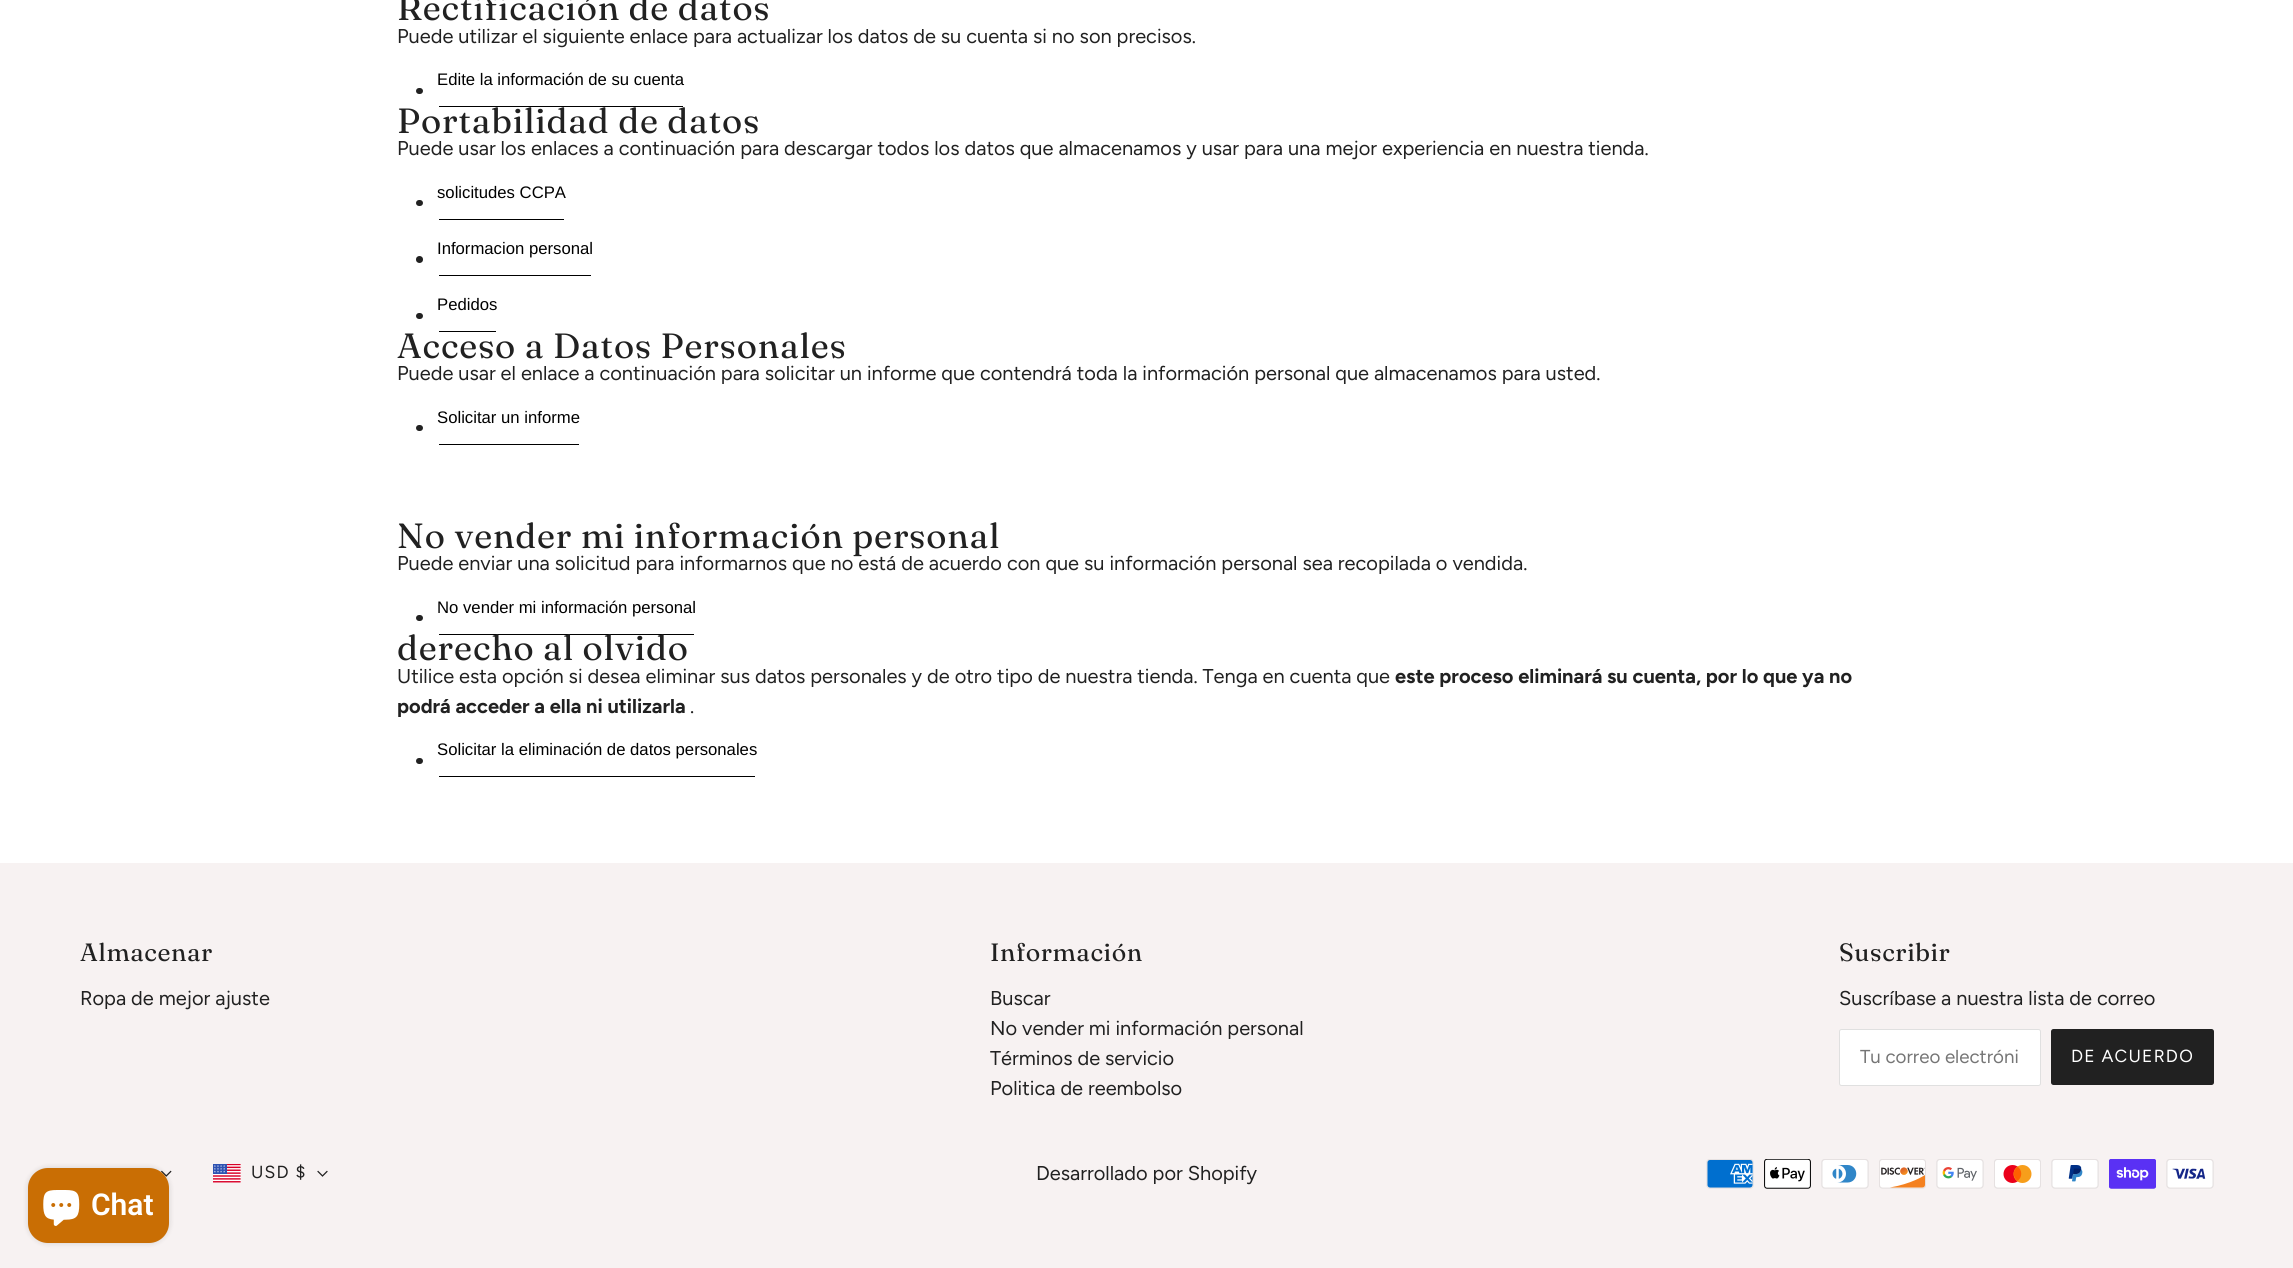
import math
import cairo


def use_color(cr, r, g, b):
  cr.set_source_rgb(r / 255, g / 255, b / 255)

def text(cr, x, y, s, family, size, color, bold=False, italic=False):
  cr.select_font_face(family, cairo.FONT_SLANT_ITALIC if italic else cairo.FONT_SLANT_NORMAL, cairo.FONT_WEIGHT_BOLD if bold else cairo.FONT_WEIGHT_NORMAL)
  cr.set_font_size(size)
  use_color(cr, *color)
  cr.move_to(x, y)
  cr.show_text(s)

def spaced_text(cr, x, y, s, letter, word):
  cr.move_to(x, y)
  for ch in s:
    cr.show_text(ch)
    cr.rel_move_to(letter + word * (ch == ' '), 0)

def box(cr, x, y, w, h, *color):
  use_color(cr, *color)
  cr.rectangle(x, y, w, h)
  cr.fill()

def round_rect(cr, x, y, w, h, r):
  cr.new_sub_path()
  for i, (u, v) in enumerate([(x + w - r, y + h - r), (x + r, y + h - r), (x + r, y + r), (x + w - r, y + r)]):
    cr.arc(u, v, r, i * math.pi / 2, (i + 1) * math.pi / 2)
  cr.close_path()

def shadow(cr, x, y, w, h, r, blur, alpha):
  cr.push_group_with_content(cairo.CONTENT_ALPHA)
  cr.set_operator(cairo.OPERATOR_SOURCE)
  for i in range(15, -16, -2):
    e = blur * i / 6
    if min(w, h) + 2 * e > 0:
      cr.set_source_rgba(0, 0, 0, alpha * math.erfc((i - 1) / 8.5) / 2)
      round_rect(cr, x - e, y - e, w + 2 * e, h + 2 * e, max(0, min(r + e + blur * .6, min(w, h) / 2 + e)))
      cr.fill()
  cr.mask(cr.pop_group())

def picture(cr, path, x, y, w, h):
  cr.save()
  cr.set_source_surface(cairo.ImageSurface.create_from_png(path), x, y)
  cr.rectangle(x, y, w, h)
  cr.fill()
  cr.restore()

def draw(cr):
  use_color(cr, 255, 255, 255)
  cr.paint()
  box(cr, 439, 106, 244, 1, 0, 0, 0)
  use_color(cr, 33, 33, 33)
  round_rect(cr, 416, 88, 7, 6, 3)
  cr.fill()
  box(cr, 439, 219, 125, 1, 0, 0, 0)
  use_color(cr, 33, 33, 33)
  round_rect(cr, 416, 200, 7, 6, 3)
  cr.fill()
  box(cr, 439, 275, 152, 1, 0, 0, 0)
  use_color(cr, 33, 33, 33)
  cr.arc(419.5, 259.5, 3.5, 0, 2 * math.pi)
  cr.fill()
  box(cr, 439, 331, 57, 1, 0, 0, 0)
  use_color(cr, 33, 33, 33)
  round_rect(cr, 416, 313, 7, 6, 3)
  cr.fill()
  box(cr, 439, 444, 140, 1, 0, 0, 0)
  use_color(cr, 33, 33, 33)
  round_rect(cr, 416, 425, 7, 6, 3)
  cr.fill()
  box(cr, 439, 634, 255, 1, 0, 0, 0)
  use_color(cr, 33, 33, 33)
  round_rect(cr, 416, 615, 7, 6, 3)
  cr.fill()
  box(cr, 439, 776, 316, 1, 0, 0, 0)
  use_color(cr, 33, 33, 33)
  round_rect(cr, 416, 758, 7, 6, 3)
  cr.fill()
  box(cr, 0, 863, 2293, 405, 247, 242, 242)
  use_color(cr, 255, 255, 255)
  round_rect(cr, 1839.5, 1029.5, 201, 56, 2)
  cr.fill_preserve()
  use_color(cr, 224, 224, 224)
  cr.set_line_width(1)
  cr.stroke()
  use_color(cr, 33, 33, 33)
  round_rect(cr, 2051, 1029, 163, 56, 2.5)
  cr.fill()
  picture(cr, "img_01.png", 161, 1170, 11, 7)
  picture(cr, "img_02.png", 213, 1164, 28, 19)
  picture(cr, "img_03.png", 317, 1170, 11, 7)
  picture(cr, "img_04.png", 1706, 1159, 48, 30)
  picture(cr, "img_05.png", 1764, 1159, 47, 30)
  picture(cr, "img_06.png", 1821, 1159, 48, 30)
  picture(cr, "img_07.png", 1879, 1159, 47, 30)
  picture(cr, "img_08.png", 1936, 1159, 48, 30)
  picture(cr, "img_09.png", 1994, 1159, 47, 30)
  picture(cr, "img_10.png", 2051, 1159, 48, 30)
  picture(cr, "img_11.png", 2109, 1159, 47, 30)
  picture(cr, "img_12.png", 2166, 1159, 48, 30)
  use_color(cr, 0, 0, 0)
  shadow(cr, 28, 1168, 141, 75, 20, 3, 0.15)
  use_color(cr, 201, 110, 4)
  round_rect(cr, 28, 1168, 141, 75, 20)
  cr.fill()
  picture(cr, "img_13.png", 43, 1190, 37, 36)
  cr.select_font_face("Fraunces")
  cr.set_font_size(35)
  use_color(cr, 33, 33, 33)
  spaced_text(cr, 397, 20, "Rectificación de datos", 0.9, 0)
  text(cr, 397, 43, "Puede utilizar el siguiente enlace para actualizar los datos de su cuenta si no son precisos.", "Figtree", 20, (33, 33, 33))
  text(cr, 437, 85, "Edite la información de su cuenta", "Liberation Sans", 16.7, (0, 0, 0))
  cr.select_font_face("Fraunces")
  cr.set_font_size(35)
  use_color(cr, 33, 33, 33)
  spaced_text(cr, 397, 133, "Portabilidad de datos", 0.9, 0)
  text(cr, 397, 155, "Puede usar los enlaces a continuación para descargar todos los datos que almacenamos y usar para una mejor experiencia en nuestra tienda.", "Figtree", 20, (33, 33, 33))
  text(cr, 437, 198, "solicitudes CCPA", "Liberation Sans", 16.7, (0, 0, 0))
  text(cr, 437, 254, "Informacion personal", "Liberation Sans", 16.7, (0, 0, 0))
  text(cr, 437, 310, "Pedidos", "Liberation Sans", 16.7, (0, 0, 0))
  cr.select_font_face("Fraunces")
  cr.set_font_size(35)
  use_color(cr, 33, 33, 33)
  spaced_text(cr, 397, 358, "Acceso a Datos Personales", 0.9, 0)
  text(cr, 397, 380, "Puede usar el enlace a continuación para solicitar un informe que contendrá toda la información personal que almacenamos para usted.", "Figtree", 20, (33, 33, 33))
  text(cr, 437, 423, "Solicitar un informe", "Liberation Sans", 16.7, (0, 0, 0))
  cr.select_font_face("Fraunces")
  cr.set_font_size(35)
  use_color(cr, 33, 33, 33)
  spaced_text(cr, 397, 548, "No vender mi información personal", 0.9, 0)
  text(cr, 397, 570, "Puede enviar una solicitud para informarnos que no está de acuerdo con que su información personal sea recopilada o vendida.", "Figtree", 20, (33, 33, 33))
  text(cr, 437, 613, "No vender mi información personal", "Liberation Sans", 16.7, (0, 0, 0))
  cr.select_font_face("Fraunces")
  cr.set_font_size(35)
  use_color(cr, 33, 33, 33)
  spaced_text(cr, 397, 660, "derecho al olvido", 0.9, 0)
  text(cr, 397, 683, "Utilice esta opción si desea eliminar sus datos personales y de otro tipo de nuestra tienda. Tenga en cuenta que", "Figtree", 20, (33, 33, 33))
  text(cr, 1395, 683, "este proceso eliminará su cuenta, por lo que ya no", "Figtree", 20, (33, 33, 33), bold=True)
  text(cr, 397, 713, "podrá acceder a ella ni utilizarla", "Figtree", 20, (33, 33, 33), bold=True)
  text(cr, 690, 713, ".", "Figtree", 20, (33, 33, 33))
  text(cr, 437, 755, "Solicitar la eliminación de datos personales", "Liberation Sans", 16.7, (0, 0, 0))
  cr.select_font_face("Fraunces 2")
  cr.set_font_size(25)
  use_color(cr, 33, 33, 33)
  spaced_text(cr, 80, 961, "Almacenar", 0.6, 0)
  text(cr, 80, 1005, "Ropa de mejor ajuste", "Figtree", 20, (33, 33, 33))
  cr.select_font_face("Fraunces 2")
  cr.set_font_size(25)
  spaced_text(cr, 990, 961, "Información", 0.6, 0)
  text(cr, 990, 1005, "Buscar", "Figtree", 20, (33, 33, 33))
  text(cr, 990, 1035, "No vender mi información personal", "Figtree", 20, (33, 33, 33))
  text(cr, 990, 1065, "Términos de servicio", "Figtree", 20, (33, 33, 33))
  text(cr, 990, 1095, "Politica de reembolso", "Figtree", 20, (33, 33, 33))
  cr.select_font_face("Fraunces 2")
  cr.set_font_size(25)
  spaced_text(cr, 1839, 961, "Suscribir", 0.6, 0)
  text(cr, 1839, 1005, "Suscríbase a nuestra lista de correo", "Figtree", 20, (33, 33, 33))
  text(cr, 1860, 1063, "Tu correo electróni", "Figtree", 18.75, (117, 117, 117))
  cr.set_font_size(17.5)
  use_color(cr, 255, 255, 255)
  spaced_text(cr, 2071, 1062, "DE ACUERDO", 1.25, 0)
  use_color(cr, 33, 33, 33)
  spaced_text(cr, 251, 1178, "USD $", 1.25, 0)
  text(cr, 1036, 1180, "Desarrollado por Shopify", "Figtree", 20, (33, 33, 33))
  text(cr, 91, 1215, "Chat", "Roboto SemiBold", 30, (255, 255, 255))


surface = cairo.ImageSurface(cairo.FORMAT_RGB24, 2293, 1268)
cr = cairo.Context(surface)
options = cairo.FontOptions()
options.set_hint_metrics(cairo.HINT_METRICS_OFF)
options.set_hint_style(cairo.HINT_STYLE_NONE)
cr.set_font_options(options)
cr.set_miter_limit(4)
draw(cr)
surface.write_to_png("out.png")
